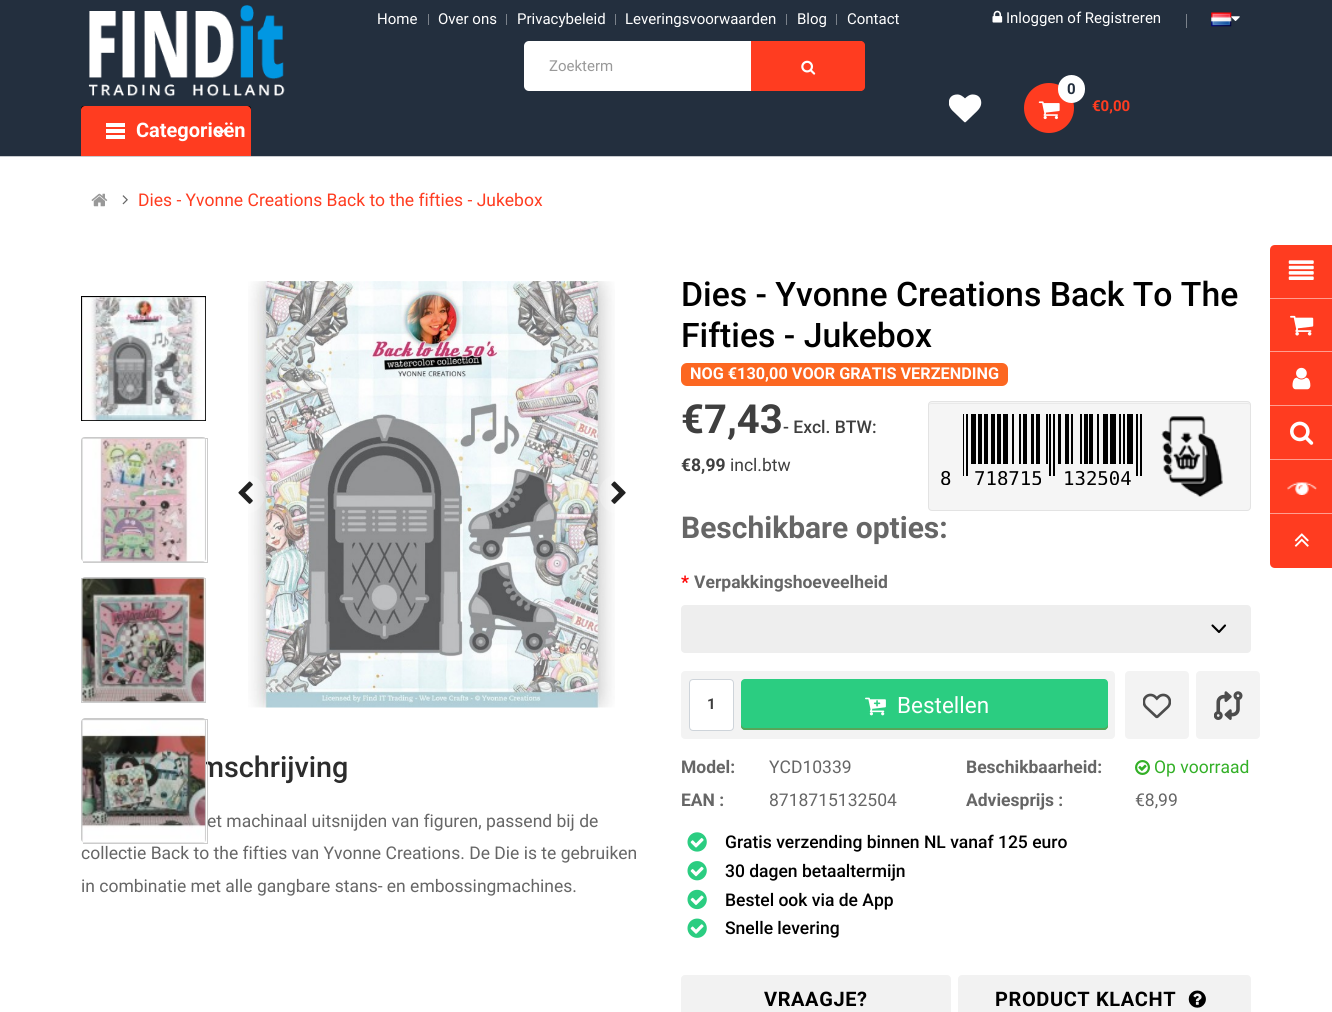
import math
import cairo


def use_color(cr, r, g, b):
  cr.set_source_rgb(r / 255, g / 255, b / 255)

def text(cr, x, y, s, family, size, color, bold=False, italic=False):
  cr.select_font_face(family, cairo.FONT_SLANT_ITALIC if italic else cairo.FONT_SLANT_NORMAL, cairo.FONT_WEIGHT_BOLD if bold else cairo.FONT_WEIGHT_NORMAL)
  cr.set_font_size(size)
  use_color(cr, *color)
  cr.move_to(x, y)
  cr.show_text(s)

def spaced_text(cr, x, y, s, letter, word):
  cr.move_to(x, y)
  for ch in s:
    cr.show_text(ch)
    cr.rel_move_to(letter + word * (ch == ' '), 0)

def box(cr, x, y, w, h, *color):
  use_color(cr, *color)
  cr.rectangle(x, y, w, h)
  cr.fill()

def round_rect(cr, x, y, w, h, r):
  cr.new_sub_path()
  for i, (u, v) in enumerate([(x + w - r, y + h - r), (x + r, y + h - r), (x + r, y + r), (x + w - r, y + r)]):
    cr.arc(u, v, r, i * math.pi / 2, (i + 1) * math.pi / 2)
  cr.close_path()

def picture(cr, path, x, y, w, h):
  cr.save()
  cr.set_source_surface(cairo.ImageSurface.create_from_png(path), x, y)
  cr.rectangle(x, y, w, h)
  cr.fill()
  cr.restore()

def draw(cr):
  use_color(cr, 255, 255, 255)
  cr.paint()
  box(cr, 0, 0, 1332, 156, 35, 47, 62)
  box(cr, 0, 156, 1332, 1, 199, 202, 206)
  box(cr, 428, 14, 1, 11, 123, 130, 139)
  box(cr, 506, 14, 1, 11, 123, 130, 139)
  box(cr, 615, 14, 1, 11, 123, 130, 139)
  box(cr, 786, 14, 1, 11, 123, 130, 139)
  box(cr, 836, 14, 1, 11, 123, 130, 139)
  picture(cr, "img_01.png", 992, 10, 11, 13)
  box(cr, 1186, 14, 1, 14, 123, 130, 139)
  picture(cr, "img_02.png", 1211, 12, 21, 15)
  picture(cr, "img_03.png", 1231, 16, 9, 5)
  picture(cr, "img_04.png", 88, 5, 197, 92)
  use_color(cr, 255, 255, 255)
  round_rect(cr, 524, 41, 340, 50, 5)
  cr.fill()
  use_color(cr, 255, 60, 32)
  cr.new_path()
  cr.move_to(751, 41)
  cr.line_to(861, 41)
  cr.curve_to(863, 41, 865, 43, 865, 45)
  cr.line_to(865, 87)
  cr.curve_to(865, 89, 863, 91, 861, 91)
  cr.line_to(751, 91)
  cr.close_path()
  cr.fill()
  picture(cr, "img_05.png", 801, 60, 15, 15)
  picture(cr, "img_06.png", 949, 94, 33, 29)
  cr.arc(1049, 108, 25, 0, 2 * math.pi)
  cr.fill()
  picture(cr, "img_07.png", 1038, 101, 22, 19)
  use_color(cr, 255, 255, 255)
  round_rect(cr, 1058, 75, 27, 28, 13.5)
  cr.fill()
  use_color(cr, 0, 0, 0)
  round_rect(cr, 81, 106, 170, 50, 2.5)
  cr.fill()
  use_color(cr, 255, 60, 32)
  cr.new_path()
  cr.move_to(85, 106)
  cr.line_to(247, 106)
  cr.curve_to(249, 106, 251, 108, 251, 110)
  cr.line_to(251, 156)
  cr.line_to(81, 156)
  cr.line_to(81, 110)
  cr.curve_to(81, 108, 83, 106, 85, 106)
  cr.close_path()
  cr.fill()
  box(cr, 106, 123, 19, 4, 255, 255, 255)
  box(cr, 106, 129, 19, 4, 255, 255, 255)
  box(cr, 106, 135, 19, 4, 255, 255, 255)
  picture(cr, "img_09.png", 91, 193, 17, 14)
  picture(cr, "img_10.png", 122, 195, 6, 10)
  use_color(cr, 201, 201, 201)
  cr.new_path()
  cr.move_to(206, 300)
  cr.line_to(206, 417)
  cr.curve_to(206, 419, 205, 421, 202, 421)
  cr.line_to(85, 421)
  cr.curve_to(83, 421, 81, 419, 81, 417)
  cr.line_to(81, 300)
  cr.curve_to(81, 298, 83, 296, 85, 296)
  cr.line_to(202, 296)
  cr.curve_to(205, 296, 206, 298, 206, 300)
  cr.close_path()
  cr.fill()
  cr.rectangle(81.5, 296.5, 124, 124)
  use_color(cr, 0, 0, 0)
  cr.set_line_width(1)
  cr.stroke()
  picture(cr, "img_11.png", 82, 297, 124, 124)
  use_color(cr, 201, 201, 201)
  cr.new_path()
  cr.move_to(206, 441)
  cr.line_to(206, 558)
  cr.curve_to(206, 560, 205, 562, 202, 562)
  cr.line_to(85, 562)
  cr.curve_to(83, 562, 81, 560, 81, 558)
  cr.line_to(81, 441)
  cr.curve_to(81, 438, 83, 437, 85, 437)
  cr.line_to(202, 437)
  cr.curve_to(205, 437, 206, 438, 206, 441)
  cr.close_path()
  cr.fill()
  cr.rectangle(83.5, 438.5, 124, 124)
  use_color(cr, 204, 204, 204)
  cr.stroke()
  picture(cr, "img_12.png", 82, 438, 124, 124)
  use_color(cr, 201, 201, 201)
  cr.new_path()
  cr.move_to(206, 581)
  cr.line_to(206, 699)
  cr.curve_to(206, 701, 205, 702, 202, 702)
  cr.line_to(85, 702)
  cr.curve_to(83, 702, 81, 701, 81, 699)
  cr.line_to(81, 581)
  cr.curve_to(81, 579, 83, 577, 85, 577)
  cr.line_to(202, 577)
  cr.curve_to(205, 577, 206, 579, 206, 581)
  cr.close_path()
  cr.fill()
  cr.rectangle(81.5, 578.5, 124, 124)
  use_color(cr, 204, 204, 204)
  cr.stroke()
  picture(cr, "img_13.png", 82, 578, 124, 124)
  picture(cr, "img_15.png", 248, 281, 367, 427)
  cr.set_source_rgba(1, 1, 1, 0.21)
  cr.arc(245, 494, 20, 0, 2 * math.pi)
  cr.fill()
  picture(cr, "img_16.png", 238, 481, 15, 23)
  cr.arc(619, 494, 20, 0, 2 * math.pi)
  cr.fill()
  picture(cr, "img_17.png", 611, 481, 15, 23)
  use_color(cr, 252, 103, 33)
  round_rect(cr, 681, 363, 327, 23, 6)
  cr.fill()
  use_color(cr, 245, 245, 245)
  round_rect(cr, 928, 401, 323, 110, 4)
  cr.fill()
  use_color(cr, 233, 233, 233)
  cr.new_path()
  cr.move_to(931, 404)
  cr.line_to(1248, 404)
  cr.curve_to(1249, 404, 1250, 405, 1250, 406)
  cr.curve_to(1250, 404, 1249, 403, 1248, 403)
  cr.line_to(932, 403)
  cr.curve_to(930, 403, 929, 404, 929, 406)
  cr.curve_to(929, 405, 930, 404, 931, 404)
  cr.close_path()
  cr.fill()
  round_rect(cr, 928.5, 401.5, 322, 109, 3.5)
  use_color(cr, 227, 227, 227)
  cr.stroke()
  picture(cr, "img_18.png", 963, 414, 179, 62)
  picture(cr, "img_19.png", 1161, 416, 62, 81)
  use_color(cr, 238, 238, 238)
  round_rect(cr, 681, 605, 570, 48, 4)
  cr.fill()
  cr.new_path()
  cr.move_to(1212.5, 625.5)
  cr.line_to(1219, 632)
  cr.line_to(1225, 625.5)
  use_color(cr, 0, 0, 0)
  cr.set_line_width(2.1)
  cr.set_line_cap(cairo.LINE_CAP_ROUND)
  cr.set_line_join(cairo.LINE_JOIN_ROUND)
  cr.stroke()
  use_color(cr, 243, 243, 243)
  round_rect(cr, 681, 671, 434, 68, 4)
  cr.fill()
  use_color(cr, 255, 255, 255)
  round_rect(cr, 689.5, 679.5, 44, 51, 3.5)
  cr.fill_preserve()
  use_color(cr, 206, 212, 218)
  cr.set_line_width(1)
  cr.set_line_cap(cairo.LINE_CAP_BUTT)
  cr.set_line_join(cairo.LINE_JOIN_MITER)
  cr.stroke()
  use_color(cr, 43, 205, 129)
  round_rect(cr, 741, 679, 367, 51, 4)
  cr.fill()
  use_color(cr, 88, 165, 89)
  cr.new_path()
  cr.move_to(741, 724)
  cr.line_to(741, 726)
  cr.curve_to(741, 728, 743, 730, 745, 730)
  cr.line_to(1104, 730)
  cr.curve_to(1106, 730, 1108, 728, 1108, 726)
  cr.line_to(1108, 724)
  cr.curve_to(1108, 726, 1106, 728, 1104, 728)
  cr.line_to(745, 728)
  cr.curve_to(743, 728, 741, 726, 741, 724)
  cr.close_path()
  cr.fill()
  picture(cr, "img_20.png", 865, 697, 21, 19)
  use_color(cr, 243, 243, 243)
  round_rect(cr, 1125, 671, 64, 68, 4)
  cr.fill()
  picture(cr, "img_21.png", 1143, 693, 28, 26)
  round_rect(cr, 1196, 671, 64, 68, 4)
  cr.fill()
  picture(cr, "img_22.png", 1214, 691, 29, 29)
  picture(cr, "img_23.png", 1135, 760, 15, 15)
  picture(cr, "img_24.png", 687, 832, 20, 20)
  picture(cr, "img_25.png", 687, 861, 20, 20)
  picture(cr, "img_26.png", 687, 889, 20, 21)
  picture(cr, "img_27.png", 687, 918, 20, 20)
  use_color(cr, 242, 242, 242)
  round_rect(cr, 681, 975, 270, 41, 4)
  cr.fill()
  round_rect(cr, 958, 975, 293, 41, 4)
  cr.fill()
  picture(cr, "img_28.png", 1188, 990, 18, 18)
  use_color(cr, 255, 60, 32)
  cr.new_path()
  cr.move_to(1275, 245)
  cr.line_to(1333, 245)
  cr.line_to(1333, 568)
  cr.line_to(1275, 568)
  cr.curve_to(1272, 568, 1270, 566, 1270, 563)
  cr.line_to(1270, 250)
  cr.curve_to(1270, 247, 1272, 245, 1275, 245)
  cr.close_path()
  cr.fill()
  box(cr, 1270, 298, 62, 1, 255, 158, 144)
  picture(cr, "img_29.png", 1288, 260, 26, 20)
  box(cr, 1270, 351, 62, 1, 255, 158, 144)
  picture(cr, "img_30.png", 1290, 315, 24, 21)
  box(cr, 1270, 405, 62, 1, 255, 158, 144)
  picture(cr, "img_31.png", 1292, 367, 19, 23)
  box(cr, 1270, 459, 62, 1, 255, 158, 144)
  picture(cr, "img_32.png", 1290, 421, 24, 24)
  box(cr, 1270, 513, 62, 1, 255, 158, 144)
  picture(cr, "img_33.png", 1287, 482, 30, 13)
  picture(cr, "img_34.png", 1294, 533, 15, 14)
  text(cr, 377, 24, "Home", "Roboto", 15, (255, 255, 255))
  text(cr, 438, 24, "Over ons", "Roboto", 15, (255, 255, 255))
  text(cr, 517, 24, "Privacybeleid", "Roboto", 15, (255, 255, 255))
  text(cr, 625, 24, "Leveringsvoorwaarden", "Roboto", 15, (255, 255, 255))
  text(cr, 797, 24, "Blog", "Roboto", 15, (255, 255, 255))
  text(cr, 847, 24, "Contact", "Roboto", 15, (255, 255, 255))
  text(cr, 1006, 23, "Inloggen of Registreren", "Roboto", 15, (255, 255, 255))
  text(cr, 549, 71, "Zoekterm", "Roboto", 15, (153, 153, 153))
  text(cr, 1067, 94, "0", "Roboto", 15, (35, 47, 62), bold=True)
  text(cr, 1092, 111, "€0,00", "Roboto", 15, (255, 60, 32), bold=True)
  text(cr, 136, 137, "Categorieën", "Roboto", 20, (255, 255, 255), bold=True)
  picture(cr, "img_08.png", 216, 128, 9, 7)
  text(cr, 138, 206, "Dies - Yvonne Creations Back to the fifties - Jukebox", "Roboto", 17.5, (255, 60, 32))
  text(cr, 199, 777, "mschrijving", "Roboto Medium", 28.75, (44, 44, 44))
  use_color(cr, 201, 201, 201)
  cr.new_path()
  cr.move_to(206, 722)
  cr.line_to(206, 839)
  cr.curve_to(206, 841, 205, 843, 202, 843)
  cr.line_to(85, 843)
  cr.curve_to(83, 843, 81, 841, 81, 839)
  cr.line_to(81, 722)
  cr.curve_to(81, 720, 83, 718, 85, 718)
  cr.line_to(202, 718)
  cr.curve_to(205, 718, 206, 720, 206, 722)
  cr.close_path()
  cr.fill()
  cr.rectangle(83.5, 719.5, 124, 124)
  use_color(cr, 204, 204, 204)
  cr.stroke()
  picture(cr, "img_14.png", 82, 720, 124, 123)
  text(cr, 207, 827, "et machinaal uitsnijden van figuren, passend bij de", "Roboto", 17.5, (102, 102, 102))
  text(cr, 81, 859, "collectie Back to the fifties van Yvonne Creations. De Die is te gebruiken", "Roboto", 17.5, (102, 102, 102))
  text(cr, 81, 892, "in combinatie met alle gangbare stans- en embossingmachines.", "Roboto", 17.5, (102, 102, 102))
  text(cr, 681, 306, "Dies - Yvonne Creations Back To The", "Roboto Medium", 33.75, (0, 0, 0))
  text(cr, 681, 347, "Fifties - Jukebox", "Roboto Medium", 33.75, (0, 0, 0))
  text(cr, 690, 379, "NOG €130,00 VOOR GRATIS VERZENDING", "Roboto", 16.25, (255, 255, 255), bold=True)
  text(cr, 681, 433, "€7,43", "Roboto", 40, (63, 63, 63), bold=True)
  text(cr, 783, 433, "- Excl. BTW:", "Roboto Medium", 17.5, (63, 63, 63))
  text(cr, 681, 471, "€8,99", "Roboto", 17.5, (63, 63, 63), bold=True)
  text(cr, 730, 471, "incl.btw", "Roboto", 17.5, (63, 63, 63))
  cr.save()
  cr.rectangle(940, 414, 203, 71)
  cr.clip()
  text(cr, 940, 485, "8", "DejaVu Sans Mono", 19, (0, 0, 0))
  text(cr, 974, 485, "718715", "DejaVu Sans Mono", 19, (0, 0, 0))
  text(cr, 1063, 485, "132504", "DejaVu Sans Mono", 19, (0, 0, 0))
  cr.restore()
  text(cr, 681, 538, "Beschikbare opties:", "Roboto", 30, (102, 102, 102), bold=True)
  text(cr, 681, 588, "*", "Roboto", 17.5, (255, 0, 0), bold=True)
  text(cr, 694, 588, "Verpakkingshoeveelheid", "Roboto", 17.5, (102, 102, 102), bold=True)
  text(cr, 707, 709, "1", "Roboto", 15, (63, 63, 63), bold=True)
  text(cr, 897, 713, "Bestellen", "Roboto", 22.5, (255, 255, 255))
  text(cr, 681, 773, "Model:", "Roboto", 17.5, (102, 102, 102), bold=True)
  text(cr, 769, 773, "YCD10339", "Roboto", 17.5, (102, 102, 102))
  text(cr, 966, 773, "Beschikbaarheid:", "Roboto", 17.5, (102, 102, 102), bold=True)
  text(cr, 1154, 773, "Op voorraad", "Roboto", 17.5, (51, 176, 39))
  text(cr, 681, 806, "EAN :", "Roboto", 17.5, (102, 102, 102), bold=True)
  text(cr, 769, 806, "8718715132504", "Roboto", 17.5, (102, 102, 102))
  text(cr, 966, 806, "Adviesprijs :", "Roboto", 17.5, (102, 102, 102), bold=True)
  text(cr, 1135, 806, "€8,99", "Roboto", 17.5, (102, 102, 102))
  text(cr, 725, 848, "Gratis verzending binnen NL vanaf 125 euro", "Roboto Medium", 17.5, (0, 0, 0))
  text(cr, 725, 877, "30 dagen betaaltermijn", "Roboto Medium", 17.5, (0, 0, 0))
  text(cr, 725, 906, "Bestel ook via de App", "Roboto Medium", 17.5, (0, 0, 0))
  text(cr, 725, 934, "Snelle levering", "Roboto Medium", 17.5, (0, 0, 0))
  cr.select_font_face("Roboto", cairo.FONT_SLANT_NORMAL, cairo.FONT_WEIGHT_BOLD)
  cr.set_font_size(20)
  spaced_text(cr, 764, 1006, "VRAAGJE?", 0.6, 0)
  spaced_text(cr, 995, 1006, "PRODUCT KLACHT", 0.6, 0)


surface = cairo.ImageSurface(cairo.FORMAT_RGB24, 1332, 1012)
cr = cairo.Context(surface)
options = cairo.FontOptions()
options.set_hint_metrics(cairo.HINT_METRICS_OFF)
options.set_hint_style(cairo.HINT_STYLE_NONE)
cr.set_font_options(options)
cr.set_miter_limit(4)
draw(cr)
surface.write_to_png("out.png")
